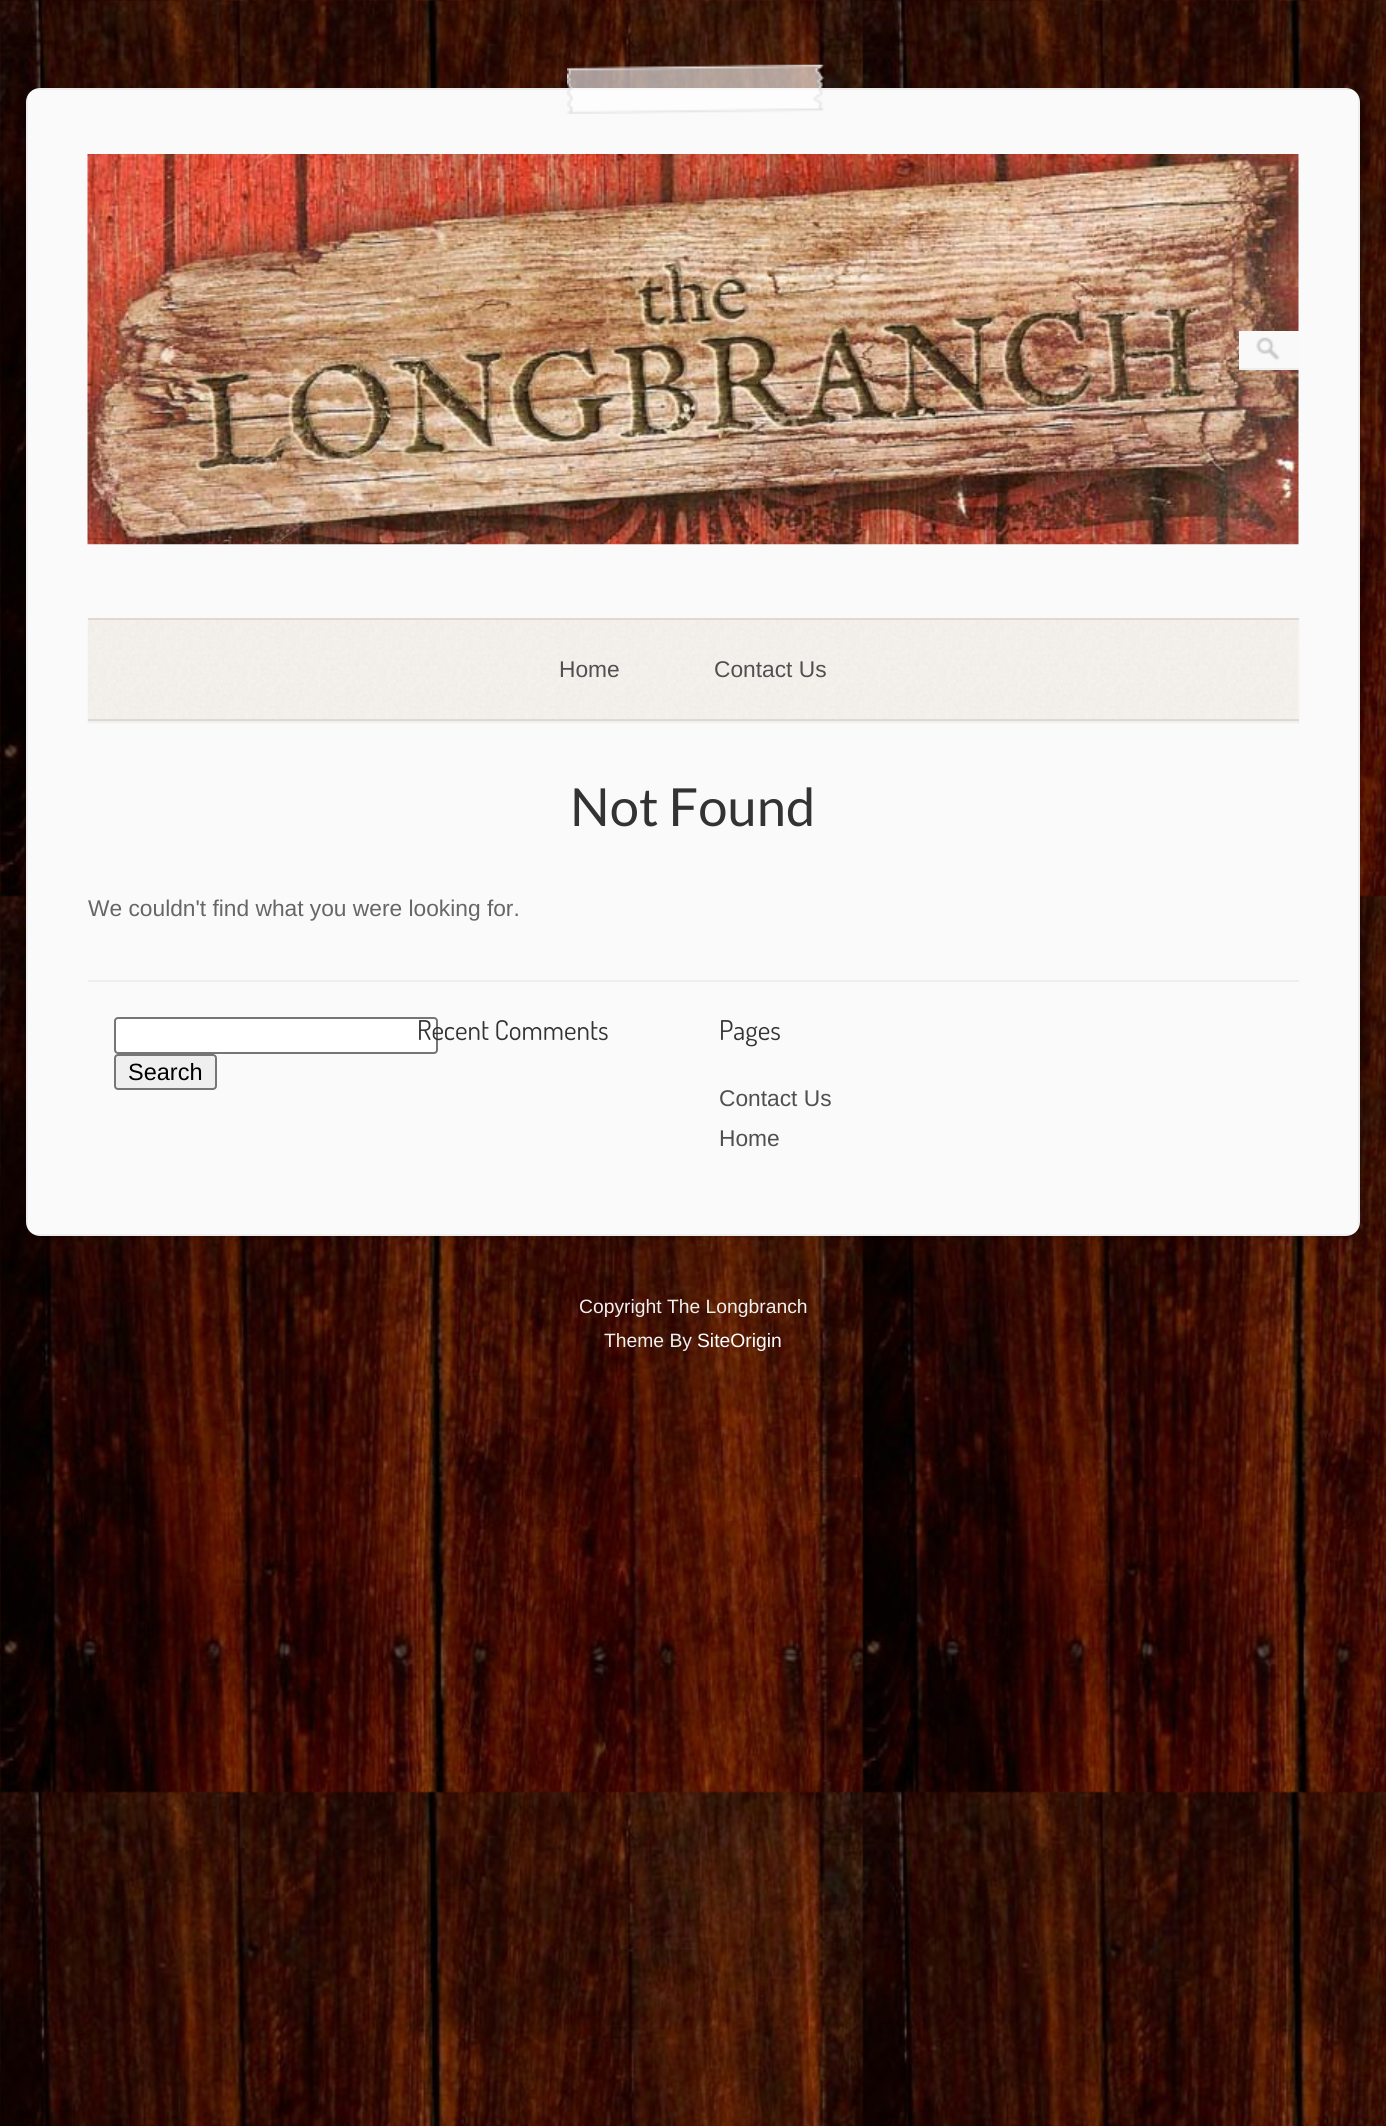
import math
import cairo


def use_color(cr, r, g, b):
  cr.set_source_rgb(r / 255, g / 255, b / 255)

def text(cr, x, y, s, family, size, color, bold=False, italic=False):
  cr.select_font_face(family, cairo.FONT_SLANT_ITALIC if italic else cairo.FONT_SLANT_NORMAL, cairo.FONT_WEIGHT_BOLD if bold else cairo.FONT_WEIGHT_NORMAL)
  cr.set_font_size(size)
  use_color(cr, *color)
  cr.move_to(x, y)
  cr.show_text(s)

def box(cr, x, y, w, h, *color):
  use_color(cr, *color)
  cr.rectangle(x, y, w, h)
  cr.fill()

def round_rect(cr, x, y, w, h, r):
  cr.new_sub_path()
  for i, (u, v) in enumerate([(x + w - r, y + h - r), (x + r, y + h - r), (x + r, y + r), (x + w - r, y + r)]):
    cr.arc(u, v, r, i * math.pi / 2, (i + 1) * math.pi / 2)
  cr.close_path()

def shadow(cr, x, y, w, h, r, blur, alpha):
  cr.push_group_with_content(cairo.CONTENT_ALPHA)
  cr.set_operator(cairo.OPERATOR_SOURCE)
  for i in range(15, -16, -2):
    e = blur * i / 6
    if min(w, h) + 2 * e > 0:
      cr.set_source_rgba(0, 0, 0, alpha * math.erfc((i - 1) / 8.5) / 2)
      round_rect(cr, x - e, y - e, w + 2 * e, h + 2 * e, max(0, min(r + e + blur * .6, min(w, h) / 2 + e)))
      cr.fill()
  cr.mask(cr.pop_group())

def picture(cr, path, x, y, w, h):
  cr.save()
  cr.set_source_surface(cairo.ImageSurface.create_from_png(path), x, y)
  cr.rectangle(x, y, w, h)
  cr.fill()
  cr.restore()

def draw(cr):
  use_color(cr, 255, 255, 255)
  cr.paint()
  picture(cr, "img_01.png", 0, 0, 1386, 2126)
  use_color(cr, 0, 0, 0)
  shadow(cr, 26, 91, 1334, 1148, 14, 2, 0.1)
  use_color(cr, 250, 250, 250)
  round_rect(cr, 26, 88, 1334, 1148, 14)
  cr.fill()
  cr.rectangle(27, 89, 1332, 1146)
  cr.set_source_rgba(0, 0, 0, 0.05)
  cr.stroke()
  picture(cr, "img_02.png", 567, 64, 258, 50)
  picture(cr, "img_03.png", 87, 154, 1212, 391)
  box(cr, 1239, 331, 60, 37, 249, 249, 249)
  picture(cr, "img_04.png", 1256, 337, 24, 24)
  box(cr, 1239, 368, 60, 2, 238, 238, 238)
  use_color(cr, 0, 0, 0)
  shadow(cr, 88, 620, 1211, 103, 0, 1, 0.05)
  box(cr, 88, 620, 1211, 99, 247, 243, 238)
  picture(cr, "img_05.png", 88, 620, 1210, 99)
  box(cr, 88, 618, 1211, 2, 225, 216, 207)
  box(cr, 88, 719, 1211, 2, 225, 216, 207)
  box(cr, 88, 980, 1211, 2, 238, 238, 238)
  use_color(cr, 255, 255, 255)
  round_rect(cr, 115, 1018, 322, 35, 3)
  cr.fill_preserve()
  use_color(cr, 118, 118, 118)
  cr.stroke()
  use_color(cr, 239, 239, 239)
  round_rect(cr, 115, 1055, 101, 34, 3)
  cr.fill_preserve()
  use_color(cr, 118, 118, 118)
  cr.stroke()
  text(cr, 559, 677, "Home", "Liberation Sans", 22.75, (80, 80, 80))
  text(cr, 714, 677, "Contact Us", "Liberation Sans", 22.75, (80, 80, 80))
  text(cr, 570, 826, "Not Found", "Lato", 52.5, (51, 51, 51))
  text(cr, 88, 916, "We couldn't find what you were looking for.", "Liberation Sans", 22.75, (102, 102, 102))
  text(cr, 128, 1080, "Search", "Liberation Sans", 23.5, (0, 0, 0))
  text(cr, 417, 1040, "Recent Comments", "Dosis", 27.25, (51, 51, 51))
  text(cr, 719, 1040, "Pages", "Dosis", 27.25, (51, 51, 51))
  text(cr, 719, 1106, "Contact Us", "Liberation Sans", 22.75, (80, 80, 80))
  text(cr, 719, 1146, "Home", "Liberation Sans", 22.75, (80, 80, 80))
  text(cr, 579, 1313, "Copyright The Longbranch", "Liberation Sans", 19.3, (240, 240, 240))
  text(cr, 604, 1347, "Theme By", "Liberation Sans", 19.3, (240, 240, 240))
  text(cr, 697, 1347, "SiteOrigin", "Liberation Sans", 19.3, (255, 255, 255))


surface = cairo.ImageSurface(cairo.FORMAT_RGB24, 1386, 2126)
cr = cairo.Context(surface)
options = cairo.FontOptions()
options.set_hint_metrics(cairo.HINT_METRICS_OFF)
options.set_hint_style(cairo.HINT_STYLE_NONE)
cr.set_font_options(options)
cr.set_miter_limit(4)
draw(cr)
surface.write_to_png("out.png")
